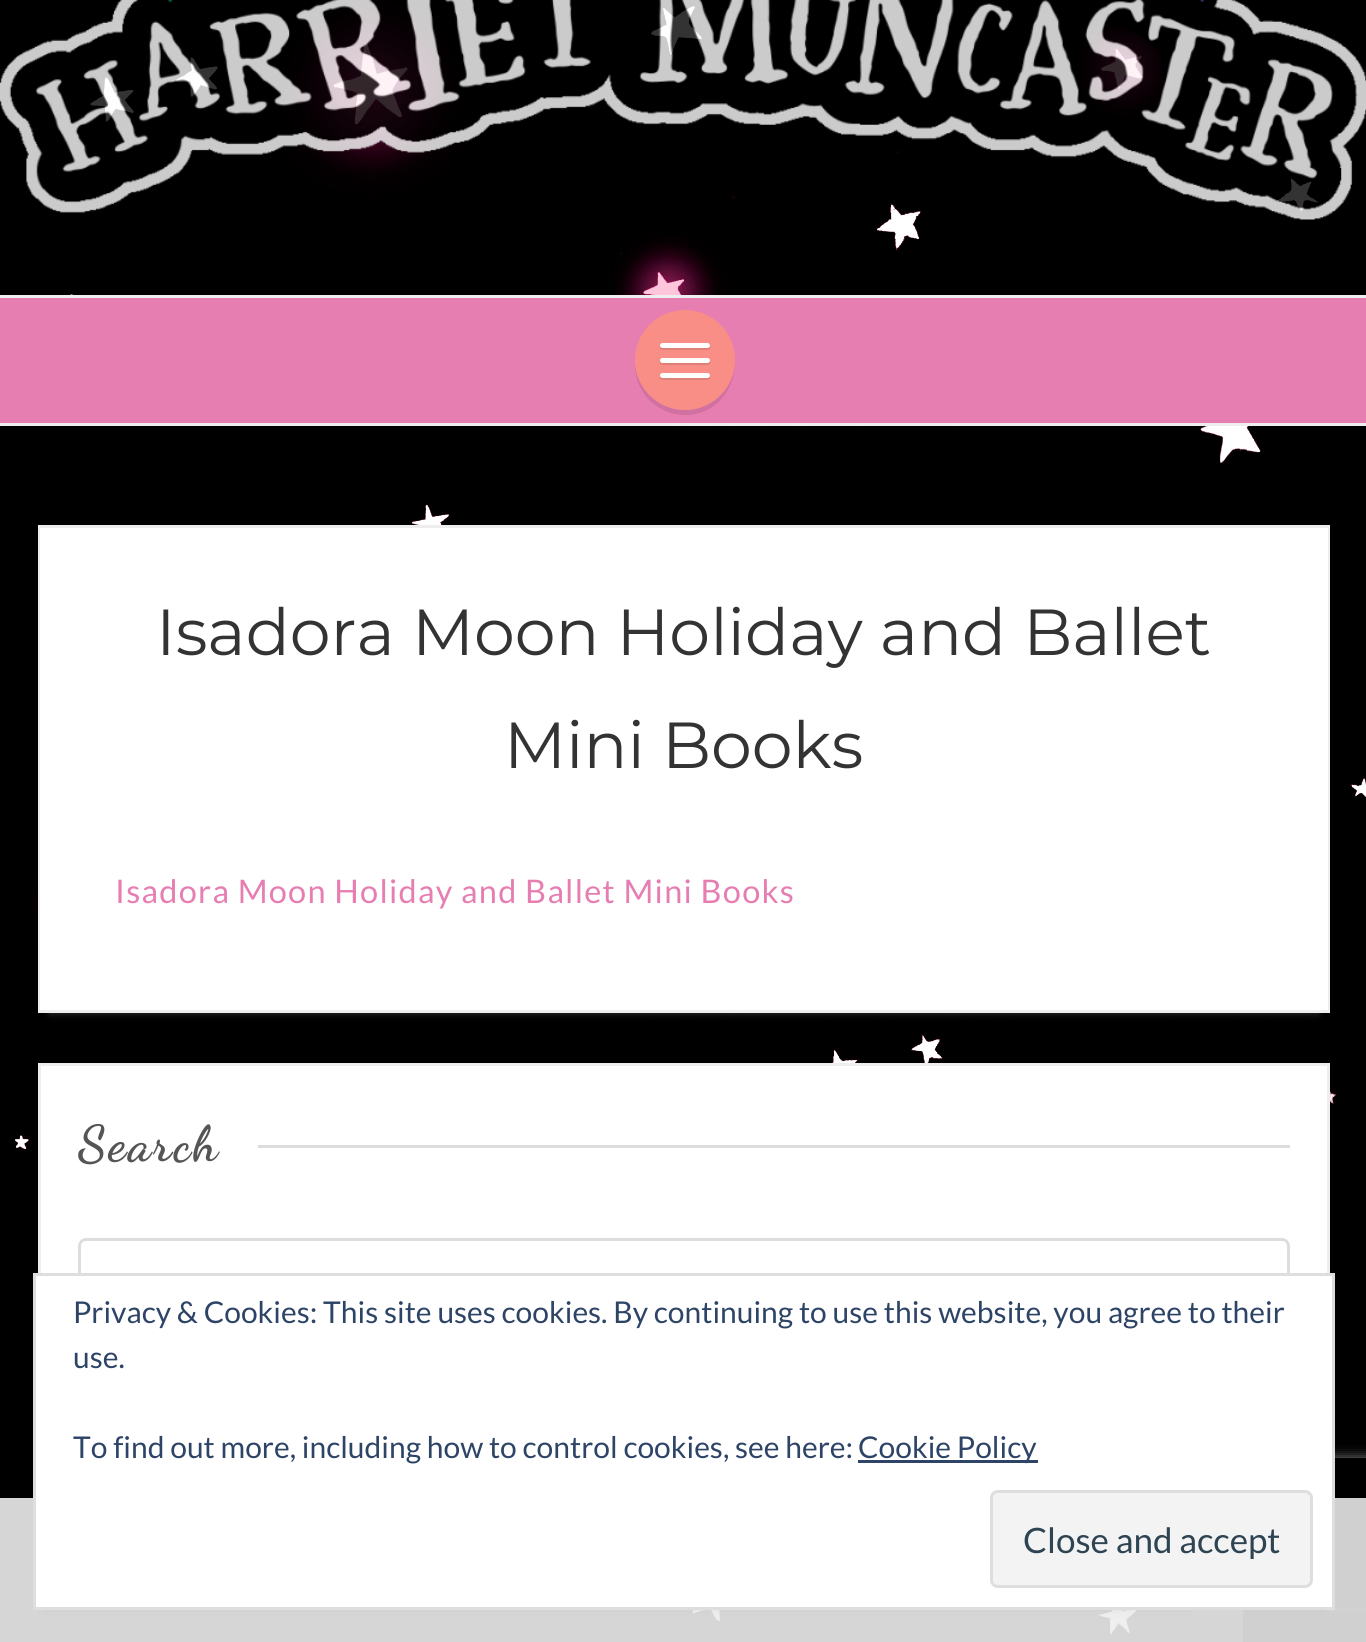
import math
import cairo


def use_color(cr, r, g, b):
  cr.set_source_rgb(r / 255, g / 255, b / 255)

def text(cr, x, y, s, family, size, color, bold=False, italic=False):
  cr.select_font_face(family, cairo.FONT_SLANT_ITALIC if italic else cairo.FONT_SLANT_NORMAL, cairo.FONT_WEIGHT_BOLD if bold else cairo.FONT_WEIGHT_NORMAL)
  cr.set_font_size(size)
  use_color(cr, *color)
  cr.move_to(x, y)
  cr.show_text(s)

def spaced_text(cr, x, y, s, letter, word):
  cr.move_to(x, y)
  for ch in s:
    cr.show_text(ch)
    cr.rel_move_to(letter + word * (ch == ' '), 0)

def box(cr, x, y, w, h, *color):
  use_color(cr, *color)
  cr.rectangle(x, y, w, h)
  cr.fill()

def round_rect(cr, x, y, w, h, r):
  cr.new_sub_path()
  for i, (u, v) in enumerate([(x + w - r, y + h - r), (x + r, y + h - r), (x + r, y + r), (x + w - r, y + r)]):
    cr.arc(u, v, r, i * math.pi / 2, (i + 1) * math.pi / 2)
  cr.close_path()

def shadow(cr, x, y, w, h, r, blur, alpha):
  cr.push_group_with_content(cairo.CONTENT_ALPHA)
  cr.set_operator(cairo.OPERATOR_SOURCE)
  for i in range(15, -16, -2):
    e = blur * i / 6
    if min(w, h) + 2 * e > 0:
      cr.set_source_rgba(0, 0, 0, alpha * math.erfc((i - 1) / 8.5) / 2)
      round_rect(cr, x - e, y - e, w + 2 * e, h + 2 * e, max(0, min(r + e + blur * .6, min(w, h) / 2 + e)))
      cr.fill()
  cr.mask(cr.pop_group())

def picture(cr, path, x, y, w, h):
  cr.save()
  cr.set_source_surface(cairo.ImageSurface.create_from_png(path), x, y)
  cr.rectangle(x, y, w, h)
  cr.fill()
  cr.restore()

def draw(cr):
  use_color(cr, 255, 255, 255)
  cr.paint()
  picture(cr, "img_01.png", 0, 0, 1366, 1642)
  picture(cr, "img_02.png", 0, 0, 1366, 220)
  box(cr, 0, 298, 1366, 125, 231, 126, 178)
  box(cr, 0, 295, 1366, 3, 238, 238, 238)
  box(cr, 0, 423, 1366, 3, 238, 238, 238)
  use_color(cr, 208, 113, 160)
  cr.new_path()
  cr.move_to(735, 362)
  cr.curve_to(734, 389, 712, 410, 685, 410)
  cr.curve_to(658, 410, 636, 389, 635, 362)
  cr.curve_to(633, 413, 698, 435, 726, 393)
  cr.curve_to(732, 384, 735, 373, 735, 362)
  cr.close_path()
  cr.fill()
  use_color(cr, 248, 142, 134)
  cr.arc(685, 360, 50, 0, 2 * math.pi)
  cr.fill()
  use_color(cr, 223, 128, 121)
  cr.new_path()
  cr.move_to(660, 346)
  cr.curve_to(658, 351, 665, 350, 670, 350)
  cr.line_to(700, 350)
  cr.curve_to(705, 350, 712, 351, 710, 346)
  cr.line_to(708, 347)
  cr.line_to(662, 347)
  cr.close_path()
  cr.fill()
  use_color(cr, 255, 255, 255)
  round_rect(cr, 660, 343, 50, 5, 2.5)
  cr.fill()
  use_color(cr, 223, 128, 121)
  cr.new_path()
  cr.move_to(660, 361)
  cr.curve_to(658, 366, 665, 365, 670, 365)
  cr.line_to(700, 365)
  cr.curve_to(705, 365, 712, 366, 710, 361)
  cr.line_to(708, 362)
  cr.line_to(662, 362)
  cr.close_path()
  cr.fill()
  use_color(cr, 255, 255, 255)
  round_rect(cr, 660, 358, 50, 5, 2.5)
  cr.fill()
  use_color(cr, 223, 128, 121)
  cr.new_path()
  cr.move_to(660, 376)
  cr.curve_to(658, 381, 665, 380, 670, 380)
  cr.line_to(700, 380)
  cr.curve_to(705, 380, 712, 381, 710, 376)
  cr.line_to(708, 377)
  cr.line_to(662, 377)
  cr.close_path()
  cr.fill()
  use_color(cr, 255, 255, 255)
  round_rect(cr, 660, 373, 50, 5, 2.5)
  cr.fill()
  use_color(cr, 190, 190, 190)
  shadow(cr, 50, 550, 1268, 463, 0, 4, 0.3)
  cr.rectangle(39.5, 526.5, 1289, 485)
  use_color(cr, 238, 238, 238)
  cr.set_line_width(3)
  cr.stroke()
  box(cr, 40, 528, 1288, 482, 255, 255, 255)
  box(cr, 41, 1066, 1286, 207, 255, 255, 255)
  cr.rectangle(39.5, 1064.5, 1289, 317)
  use_color(cr, 238, 238, 238)
  cr.stroke()
  box(cr, 258, 1145, 1032, 3, 221, 221, 221)
  round_rect(cr, 79.5, 1239.5, 1209, 89, 6.5)
  cr.stroke()
  cr.save()
  cr.set_fill_rule(cairo.FILL_RULE_EVEN_ODD)
  cr.new_path()
  cr.move_to(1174, 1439)
  cr.line_to(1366, 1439)
  cr.line_to(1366, 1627)
  cr.line_to(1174, 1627)
  cr.close_path()
  cr.move_to(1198, 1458)
  cr.line_to(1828, 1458)
  cr.curve_to(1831, 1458, 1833, 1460, 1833, 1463)
  cr.line_to(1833, 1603)
  cr.curve_to(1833, 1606, 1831, 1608, 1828, 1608)
  cr.line_to(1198, 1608)
  cr.curve_to(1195, 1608, 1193, 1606, 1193, 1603)
  cr.line_to(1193, 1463)
  cr.curve_to(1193, 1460, 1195, 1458, 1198, 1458)
  cr.close_path()
  cr.clip()
  use_color(cr, 128, 128, 128)
  shadow(cr, 1193, 1458, 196, 150, 5, 6, 1)
  cr.restore()
  cr.set_source_rgba(0.933, 0.933, 0.933, 0.9)
  cr.rectangle(0, 1498, 1366, 144)
  cr.fill()
  cr.set_source_rgba(0.8, 0.8, 0.8, 0.6)
  cr.rectangle(1243, 1498, 123, 144)
  cr.fill()
  use_color(cr, 190, 190, 190)
  shadow(cr, 45, 1298, 1278, 312, 0, 4, 0.3)
  use_color(cr, 255, 255, 255)
  cr.rectangle(34.5, 1274.5, 1299, 334)
  cr.fill_preserve()
  use_color(cr, 222, 222, 222)
  cr.stroke()
  box(cr, 858, 1460, 180, 3, 46, 68, 103)
  use_color(cr, 243, 243, 243)
  round_rect(cr, 991.5, 1491.5, 320, 95, 6.5)
  cr.fill_preserve()
  use_color(cr, 222, 222, 222)
  cr.stroke()
  text(cr, 156, 655, "Isadora Moon Holiday and Ballet", "Montserrat", 65, (51, 51, 51))
  text(cr, 504, 768, "Mini Books", "Montserrat", 65, (51, 51, 51))
  cr.select_font_face("Lato")
  cr.set_font_size(32.5)
  use_color(cr, 231, 126, 178)
  spaced_text(cr, 115, 903, "Isadora Moon Holiday and Ballet Mini Books", 1.25, 0)
  cr.save()
  cr.rectangle(78, 1115, 1212, 60)
  cr.clip()
  cr.select_font_face("Dancing Script", cairo.FONT_SLANT_NORMAL, cairo.FONT_WEIGHT_BOLD)
  cr.set_font_size(50)
  use_color(cr, 85, 85, 85)
  spaced_text(cr, 78, 1160, "Search", 2.5, 0)
  cr.restore()
  text(cr, 73, 1323, "Privacy & Cookies: This site uses cookies. By continuing to use this website, you agree to their", "Lato", 30, (46, 68, 103))
  text(cr, 73, 1368, "use.", "Lato", 30, (46, 68, 103))
  text(cr, 73, 1458, "To find out more, including how to control cookies, see here:", "Lato", 30, (46, 68, 103))
  text(cr, 858, 1458, "Cookie Policy", "Lato", 30, (46, 68, 103))
  text(cr, 1023, 1553, "Close and accept", "Lato", 35, (46, 68, 83))


surface = cairo.ImageSurface(cairo.FORMAT_RGB24, 1366, 1642)
cr = cairo.Context(surface)
options = cairo.FontOptions()
options.set_hint_metrics(cairo.HINT_METRICS_OFF)
options.set_hint_style(cairo.HINT_STYLE_NONE)
cr.set_font_options(options)
cr.set_miter_limit(4)
draw(cr)
surface.write_to_png("out.png")
